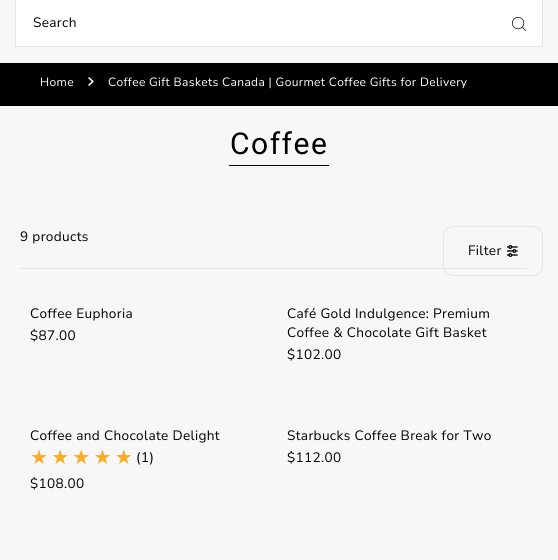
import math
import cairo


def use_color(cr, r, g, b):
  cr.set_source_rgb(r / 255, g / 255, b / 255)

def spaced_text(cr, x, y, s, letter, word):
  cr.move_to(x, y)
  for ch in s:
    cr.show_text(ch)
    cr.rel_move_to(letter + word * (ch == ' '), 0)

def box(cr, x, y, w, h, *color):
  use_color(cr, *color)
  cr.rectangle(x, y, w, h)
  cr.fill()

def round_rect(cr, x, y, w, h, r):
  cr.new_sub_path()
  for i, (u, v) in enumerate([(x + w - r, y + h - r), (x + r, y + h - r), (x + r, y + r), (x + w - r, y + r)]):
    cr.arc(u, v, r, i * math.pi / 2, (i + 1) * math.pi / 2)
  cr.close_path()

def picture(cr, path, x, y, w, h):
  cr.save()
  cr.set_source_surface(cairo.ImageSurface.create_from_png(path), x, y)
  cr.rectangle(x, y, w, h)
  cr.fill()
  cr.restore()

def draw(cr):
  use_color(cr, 247, 247, 247)
  cr.paint()
  use_color(cr, 255, 255, 255)
  cr.rectangle(15.5, -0.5, 527, 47)
  cr.fill_preserve()
  use_color(cr, 229, 229, 229)
  cr.set_line_width(1)
  cr.stroke()
  picture(cr, "img_01.png", 512, 17, 14, 14)
  box(cr, 0, 63, 558, 43, 0, 0, 0)
  picture(cr, "img_02.png", 88, 77, 6, 9)
  box(cr, 229, 165, 100, 1, 0, 0, 0)
  box(cr, 20, 268, 507, 1, 229, 229, 229)
  round_rect(cr, 443.5, 226.5, 99, 49, 9.5)
  cr.stroke()
  picture(cr, "img_03.png", 507, 245, 11, 12)
  cr.select_font_face("Nunito Sans")
  cr.set_font_size(13.6)
  use_color(cr, 0, 0, 0)
  spaced_text(cr, 33, 27, "Search", 0.35, 0)
  cr.set_font_size(12)
  use_color(cr, 255, 255, 255)
  spaced_text(cr, 40, 86, "Home", 0.35, 0)
  spaced_text(cr, 108, 86, "Coffee Gift Baskets Canada | Gourmet Coffee Gifts for Delivery", 0.35, 0)
  cr.select_font_face("Roboto")
  cr.set_font_size(30)
  use_color(cr, 0, 0, 0)
  spaced_text(cr, 230, 154, "Coffee", 1.5, 0)
  cr.select_font_face("Nunito Sans")
  cr.set_font_size(13.6)
  spaced_text(cr, 20, 241, "9 products", 0.35, 0)
  spaced_text(cr, 30, 318, "Coffee Euphoria", 0.35, 0)
  spaced_text(cr, 30, 340, "$87.00", 0.35, 0)
  spaced_text(cr, 287, 318, "Café Gold Indulgence: Premium", 0.35, 0)
  spaced_text(cr, 287, 337, "Coffee & Chocolate Gift Basket", 0.35, 0)
  spaced_text(cr, 287, 359, "$102.00", 0.35, 0)
  spaced_text(cr, 30, 440, "Coffee and Chocolate Delight", 0.35, 0)
  cr.select_font_face("DejaVu Sans")
  cr.set_font_size(20)
  use_color(cr, 252, 171, 37)
  spaced_text(cr, 30, 464, "★★★★★", 3.25, 0)
  cr.select_font_face("Nunito Sans")
  cr.set_font_size(14)
  use_color(cr, 0, 0, 0)
  spaced_text(cr, 136, 462, "(1)", 0.35, 0)
  cr.set_font_size(13.6)
  spaced_text(cr, 30, 488, "$108.00", 0.35, 0)
  spaced_text(cr, 287, 440, "Starbucks Coffee Break for Two", 0.35, 0)
  spaced_text(cr, 287, 462, "$112.00", 0.35, 0)
  spaced_text(cr, 468, 255, "Filter", 0.35, 0)


surface = cairo.ImageSurface(cairo.FORMAT_RGB24, 558, 560)
cr = cairo.Context(surface)
options = cairo.FontOptions()
options.set_hint_metrics(cairo.HINT_METRICS_OFF)
options.set_hint_style(cairo.HINT_STYLE_NONE)
cr.set_font_options(options)
cr.set_miter_limit(4)
draw(cr)
surface.write_to_png("out.png")
